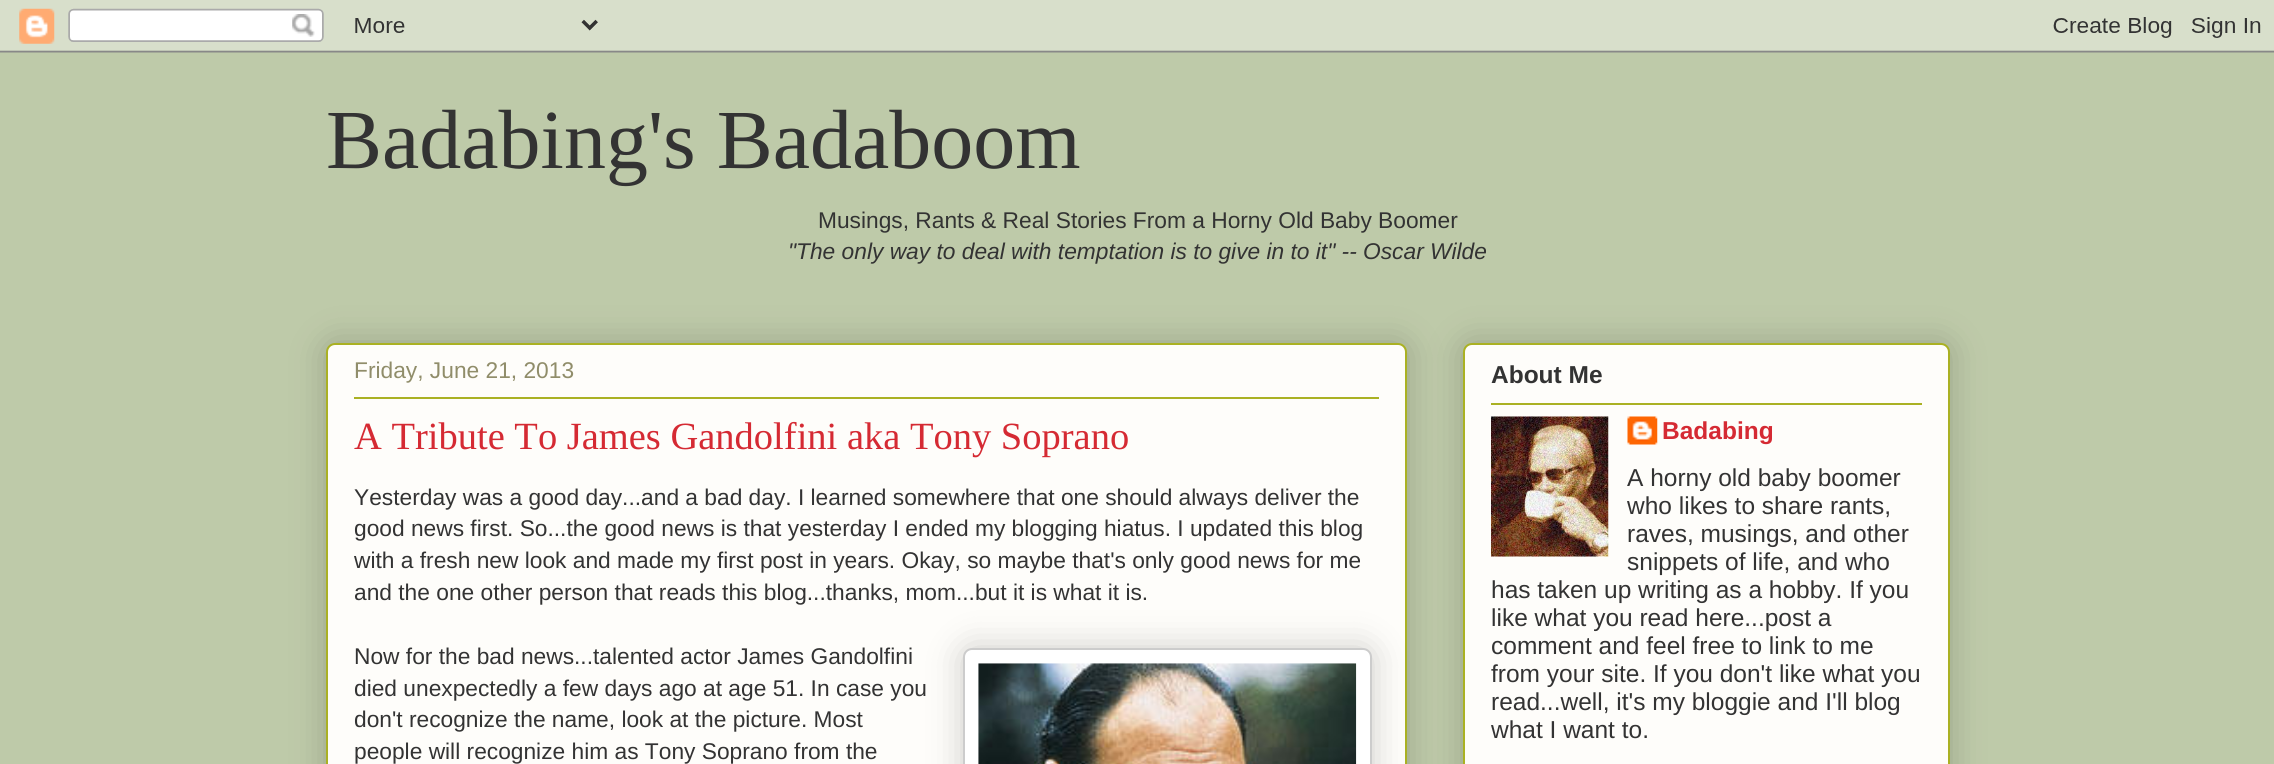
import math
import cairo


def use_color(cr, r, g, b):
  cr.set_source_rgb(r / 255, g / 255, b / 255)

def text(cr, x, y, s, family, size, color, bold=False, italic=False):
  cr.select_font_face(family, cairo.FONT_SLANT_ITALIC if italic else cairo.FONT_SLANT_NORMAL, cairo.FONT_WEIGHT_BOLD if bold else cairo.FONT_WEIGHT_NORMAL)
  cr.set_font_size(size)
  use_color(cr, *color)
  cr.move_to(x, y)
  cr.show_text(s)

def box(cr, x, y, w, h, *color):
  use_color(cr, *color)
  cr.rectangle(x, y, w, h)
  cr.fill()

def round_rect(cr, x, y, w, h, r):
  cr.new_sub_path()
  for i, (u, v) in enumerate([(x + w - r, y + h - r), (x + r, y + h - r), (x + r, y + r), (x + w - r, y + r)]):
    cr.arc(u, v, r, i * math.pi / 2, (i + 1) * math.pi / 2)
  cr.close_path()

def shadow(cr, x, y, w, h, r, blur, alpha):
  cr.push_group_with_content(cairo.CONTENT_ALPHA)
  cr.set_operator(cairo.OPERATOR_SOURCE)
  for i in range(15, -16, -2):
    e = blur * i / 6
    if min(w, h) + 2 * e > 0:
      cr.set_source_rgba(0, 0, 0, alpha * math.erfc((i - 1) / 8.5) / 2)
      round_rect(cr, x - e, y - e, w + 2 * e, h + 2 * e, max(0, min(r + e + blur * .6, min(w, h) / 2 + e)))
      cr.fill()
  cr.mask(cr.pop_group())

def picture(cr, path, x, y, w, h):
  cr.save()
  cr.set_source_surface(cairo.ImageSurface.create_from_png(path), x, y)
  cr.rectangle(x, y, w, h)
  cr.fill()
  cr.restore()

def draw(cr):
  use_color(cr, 190, 202, 169)
  cr.paint()
  picture(cr, "img_01.png", 0, 0, 2274, 53)
  use_color(cr, 0, 0, 0)
  shadow(cr, 326, 343, 1081, 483, 9, 17.5, 0.2)
  use_color(cr, 254, 253, 250)
  round_rect(cr, 327, 344, 1079, 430, 8)
  cr.fill_preserve()
  use_color(cr, 170, 177, 35)
  cr.stroke()
  box(cr, 354, 397, 1025, 2, 170, 177, 35)
  use_color(cr, 0, 0, 0)
  shadow(cr, 963, 648, 409, 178, 9, 17.5, 0.2)
  use_color(cr, 255, 255, 255)
  round_rect(cr, 964, 649, 407, 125, 8)
  cr.fill_preserve()
  use_color(cr, 204, 204, 204)
  cr.stroke()
  picture(cr, "img_02.png", 978, 663, 379, 101)
  use_color(cr, 0, 0, 0)
  shadow(cr, 1463, 343, 487, 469, 9, 17.5, 0.2)
  use_color(cr, 254, 253, 250)
  round_rect(cr, 1464, 344, 485, 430, 8)
  cr.fill_preserve()
  use_color(cr, 170, 177, 35)
  cr.stroke()
  box(cr, 1491, 403, 431, 2, 170, 177, 35)
  picture(cr, "img_03.png", 1491, 416, 118, 141)
  picture(cr, "img_04.png", 1627, 416, 31, 29)
  text(cr, 326, 168, "Badabing's Badaboom", "Liberation Serif", 84, (51, 51, 51))
  text(cr, 818, 228, "Musings, Rants & Real Stories From a Horny Old Baby Boomer", "Liberation Sans", 22.75, (51, 51, 51))
  text(cr, 788, 259, "\"The only way to deal with temptation is to give in to it\" -- Oscar Wilde", "Liberation Sans", 22.75, (51, 51, 51), italic=True)
  text(cr, 354, 378, "Friday, June 21, 2013", "Liberation Sans", 22.75, (144, 141, 106))
  text(cr, 354, 449, "A Tribute To James Gandolfini aka Tony Soprano", "Liberation Serif", 38.5, (213, 42, 51))
  text(cr, 354, 505, "Yesterday was a good day...and a bad day. I learned somewhere that one should always deliver the", "Liberation Sans", 22.75, (51, 51, 51))
  text(cr, 354, 536, "good news first. So...the good news is that yesterday I ended my blogging hiatus. I updated this blog", "Liberation Sans", 22.75, (51, 51, 51))
  text(cr, 354, 568, "with a fresh new look and made my first post in years. Okay, so maybe that's only good news for me", "Liberation Sans", 22.75, (51, 51, 51))
  text(cr, 354, 600, "and the one other person that reads this blog...thanks, mom...but it is what it is.", "Liberation Sans", 22.75, (51, 51, 51))
  text(cr, 354, 664, "Now for the bad news...talented actor James Gandolfini", "Liberation Sans", 22.75, (51, 51, 51))
  text(cr, 354, 696, "died unexpectedly a few days ago at age 51. In case you", "Liberation Sans", 22.75, (51, 51, 51))
  text(cr, 354, 727, "don't recognize the name, look at the picture. Most", "Liberation Sans", 22.75, (51, 51, 51))
  text(cr, 354, 759, "people will recognize him as Tony Soprano from the", "Liberation Sans", 22.75, (51, 51, 51))
  text(cr, 1491, 383, "About Me", "Liberation Sans", 24.5, (51, 51, 51), bold=True)
  text(cr, 1662, 439, "Badabing", "Liberation Sans", 24.5, (213, 42, 51), bold=True)
  text(cr, 1627, 486, "A horny old baby boomer", "Liberation Sans", 24.5, (51, 51, 51))
  text(cr, 1627, 514, "who likes to share rants,", "Liberation Sans", 24.5, (51, 51, 51))
  text(cr, 1627, 542, "raves, musings, and other", "Liberation Sans", 24.5, (51, 51, 51))
  text(cr, 1627, 570, "snippets of life, and who", "Liberation Sans", 24.5, (51, 51, 51))
  text(cr, 1491, 598, "has taken up writing as a hobby. If you", "Liberation Sans", 24.5, (51, 51, 51))
  text(cr, 1491, 626, "like what you read here...post a", "Liberation Sans", 24.5, (51, 51, 51))
  text(cr, 1491, 654, "comment and feel free to link to me", "Liberation Sans", 24.5, (51, 51, 51))
  text(cr, 1491, 682, "from your site. If you don't like what you", "Liberation Sans", 24.5, (51, 51, 51))
  text(cr, 1491, 710, "read...well, it's my bloggie and I'll blog", "Liberation Sans", 24.5, (51, 51, 51))
  text(cr, 1491, 738, "what I want to.", "Liberation Sans", 24.5, (51, 51, 51))


surface = cairo.ImageSurface(cairo.FORMAT_RGB24, 2274, 764)
cr = cairo.Context(surface)
options = cairo.FontOptions()
options.set_hint_metrics(cairo.HINT_METRICS_OFF)
options.set_hint_style(cairo.HINT_STYLE_NONE)
cr.set_font_options(options)
cr.set_miter_limit(4)
draw(cr)
surface.write_to_png("out.png")
